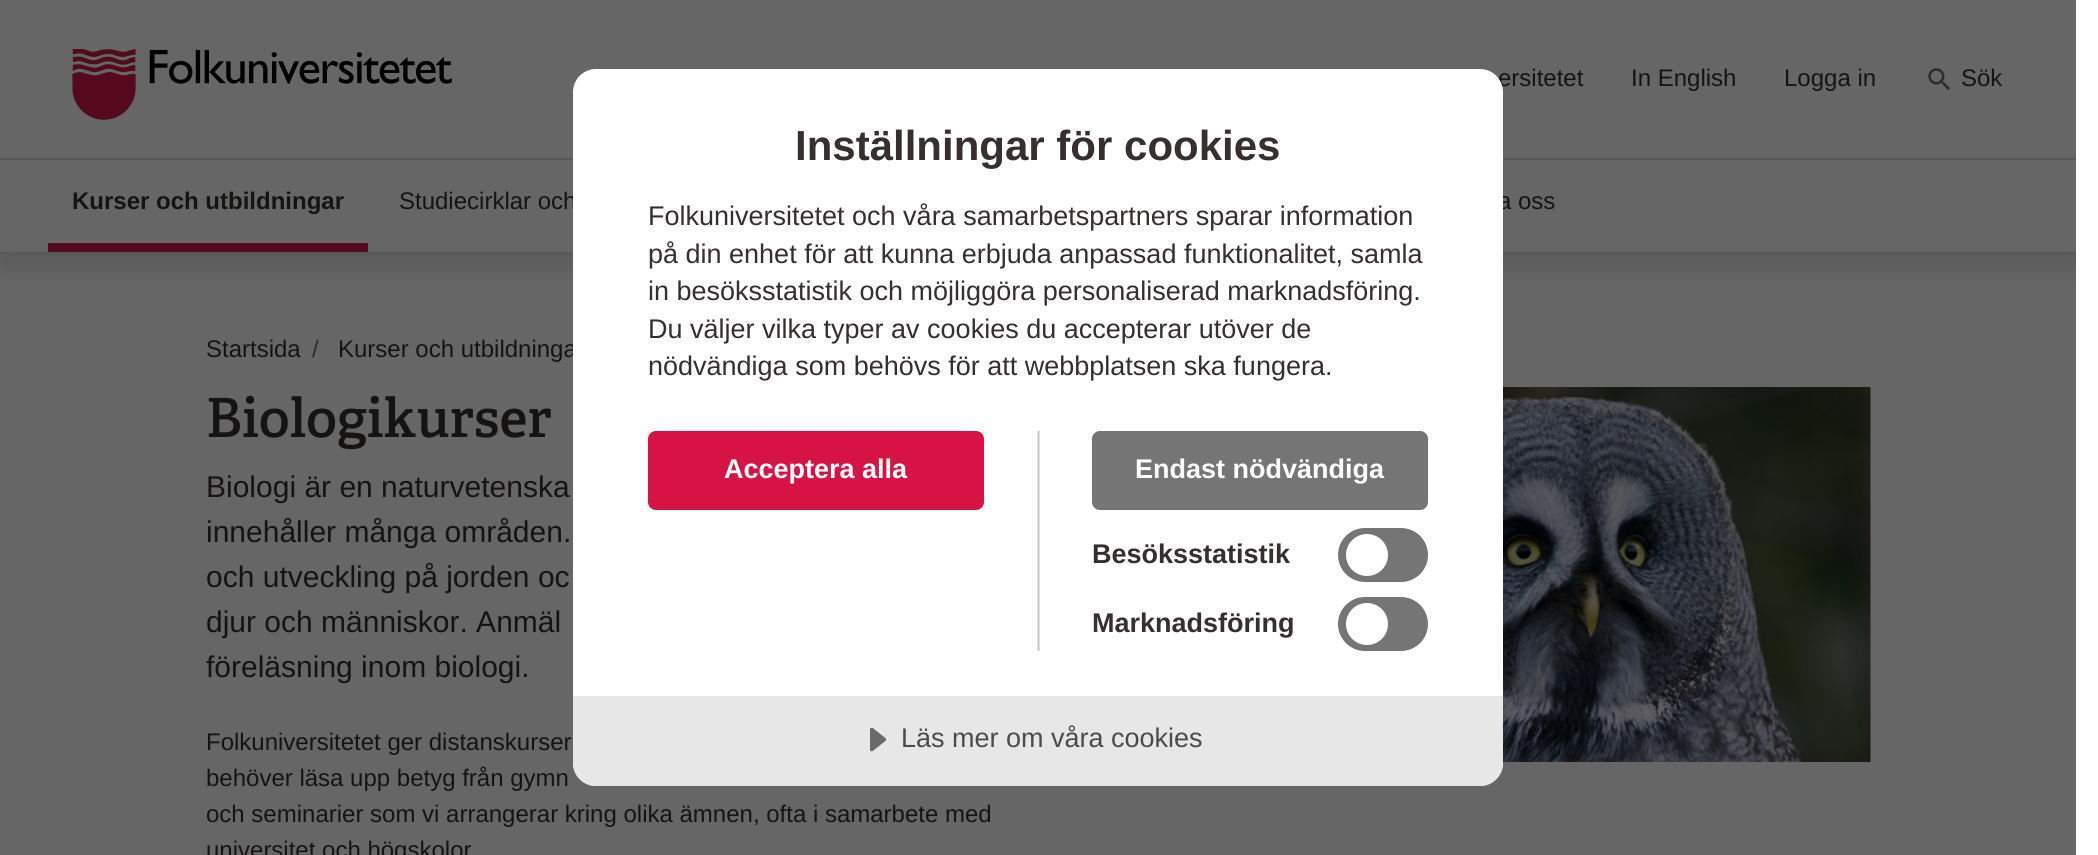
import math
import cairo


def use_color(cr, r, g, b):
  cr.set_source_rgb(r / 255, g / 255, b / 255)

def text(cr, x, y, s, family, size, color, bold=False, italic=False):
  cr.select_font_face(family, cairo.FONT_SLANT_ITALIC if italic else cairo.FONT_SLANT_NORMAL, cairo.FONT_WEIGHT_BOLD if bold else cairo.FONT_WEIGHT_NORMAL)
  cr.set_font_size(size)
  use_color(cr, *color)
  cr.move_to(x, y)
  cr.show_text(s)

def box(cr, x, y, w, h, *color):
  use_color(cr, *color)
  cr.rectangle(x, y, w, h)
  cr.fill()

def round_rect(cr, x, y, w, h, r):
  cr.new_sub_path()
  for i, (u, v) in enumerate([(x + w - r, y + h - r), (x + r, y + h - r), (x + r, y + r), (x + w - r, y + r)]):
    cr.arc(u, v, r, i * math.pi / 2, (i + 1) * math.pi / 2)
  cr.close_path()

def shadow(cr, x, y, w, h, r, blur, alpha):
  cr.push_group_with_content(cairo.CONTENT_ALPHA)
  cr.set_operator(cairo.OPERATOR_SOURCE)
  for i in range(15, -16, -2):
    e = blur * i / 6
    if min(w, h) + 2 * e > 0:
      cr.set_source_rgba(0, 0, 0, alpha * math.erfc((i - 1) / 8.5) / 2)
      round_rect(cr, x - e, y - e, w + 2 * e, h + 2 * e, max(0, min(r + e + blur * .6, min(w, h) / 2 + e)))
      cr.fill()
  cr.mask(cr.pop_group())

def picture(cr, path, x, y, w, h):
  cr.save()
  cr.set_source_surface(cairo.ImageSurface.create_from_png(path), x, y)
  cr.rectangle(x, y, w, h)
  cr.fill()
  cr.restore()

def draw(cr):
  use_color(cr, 255, 255, 255)
  cr.paint()
  box(cr, 0, 0, 2076, 855, 102, 102, 102)
  box(cr, 0, 158, 2076, 2, 90, 88, 88)
  picture(cr, "img_01.png", 72, 48, 380, 72)
  picture(cr, "img_02.png", 1928, 68, 22, 22)
  cr.save()
  cr.rectangle(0, 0, 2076, 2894)
  cr.clip()
  cr.set_fill_rule(cairo.FILL_RULE_EVEN_ODD)
  cr.new_path()
  cr.move_to(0, 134)
  cr.line_to(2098, 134)
  cr.line_to(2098, 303)
  cr.line_to(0, 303)
  cr.close_path()
  cr.move_to(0, 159)
  cr.line_to(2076, 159)
  cr.line_to(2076, 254)
  cr.line_to(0, 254)
  cr.close_path()
  cr.clip()
  use_color(cr, 22, 19, 19)
  shadow(cr, 0, 171, 2076, 95, 0, 12, 0.15)
  cr.restore()
  box(cr, 0, 252, 2076, 2, 90, 88, 88)
  box(cr, 48, 243, 320, 9, 86, 8, 28)
  picture(cr, "img_03.png", 1503, 387, 368, 375)
  text(cr, 1498, 86, "ersitetet", "Liberation Sans", 24, (22, 19, 19))
  text(cr, 1631, 86, "In English", "Liberation Sans", 24, (22, 19, 19))
  text(cr, 1784, 86, "Logga in", "Liberation Sans", 24, (22, 19, 19))
  text(cr, 1961, 86, "Sök", "Liberation Sans", 24, (22, 19, 19))
  text(cr, 72, 209, "Kurser och utbildningar", "Liberation Sans", 24, (22, 19, 19), bold=True)
  text(cr, 399, 209, "Studiecirklar och", "Liberation Sans", 24, (22, 19, 19))
  text(cr, 1498, 209, "a oss", "Liberation Sans", 24, (22, 19, 19))
  text(cr, 206, 357, "Startsida", "Liberation Sans", 24, (22, 19, 19))
  text(cr, 312, 357, "/", "Liberation Sans", 24, (46, 43, 40))
  text(cr, 338, 357, "Kurser och utbildninga", "Liberation Sans", 24, (22, 19, 19))
  text(cr, 206, 437, "Biologikurser", "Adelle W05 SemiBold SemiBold", 54, (22, 19, 19))
  text(cr, 206, 497, "Biologi är en naturvetenska", "Liberation Sans", 30, (22, 19, 19))
  text(cr, 206, 542, "innehåller många områden.", "Liberation Sans", 30, (22, 19, 19))
  text(cr, 206, 587, "och utveckling på jorden oc", "Liberation Sans", 30, (22, 19, 19))
  text(cr, 206, 632, "djur och människor. Anmäl", "Liberation Sans", 30, (22, 19, 19))
  text(cr, 206, 677, "föreläsning inom biologi.", "Liberation Sans", 30, (22, 19, 19))
  text(cr, 206, 750, "Folkuniversitetet ger distanskurser", "Liberation Sans", 24, (22, 19, 19))
  text(cr, 206, 786, "behöver läsa upp betyg från gymn", "Liberation Sans", 24, (22, 19, 19))
  text(cr, 206, 822, "och seminarier som vi arrangerar kring olika ämnen, ofta i samarbete med", "Liberation Sans", 24, (22, 19, 19))
  text(cr, 206, 858, "universitet och högskolor", "Liberation Sans", 24, (22, 19, 19))
  use_color(cr, 255, 255, 255)
  round_rect(cr, 573, 69, 930, 717, 23)
  cr.fill()
  box(cr, 1039, 431, 1, 220, 224, 224, 224)
  text(cr, 795, 160, "Inställningar för cookies", "Liberation Sans", 42, (55, 47, 47), bold=True)
  text(cr, 648, 225, "Folkuniversitetet och våra samarbetspartners sparar information", "Liberation Sans", 27, (55, 47, 47))
  text(cr, 648, 263, "på din enhet för att kunna erbjuda anpassad funktionalitet, samla", "Liberation Sans", 27, (55, 47, 47))
  text(cr, 648, 300, "in besöksstatistik och möjliggöra personaliserad marknadsföring.", "Liberation Sans", 27, (55, 47, 47))
  text(cr, 648, 338, "Du väljer vilka typer av cookies du accepterar utöver de", "Liberation Sans", 27, (55, 47, 47))
  text(cr, 648, 375, "nödvändiga som behövs för att webbplatsen ska fungera.", "Liberation Sans", 27, (55, 47, 47))
  box(cr, 1037, 431, 1, 220, 224, 224, 224)
  box(cr, 1038, 431, 1, 220, 197, 197, 197)
  use_color(cr, 215, 19, 69)
  round_rect(cr, 648, 431, 336, 79, 8)
  cr.fill()
  text(cr, 724, 478, "Acceptera alla", "Liberation Sans", 27, (255, 255, 255), bold=True)
  use_color(cr, 117, 117, 117)
  round_rect(cr, 1092, 431, 336, 79, 8)
  cr.fill()
  text(cr, 1135, 478, "Endast nödvändiga", "Liberation Sans", 27, (255, 255, 255), bold=True)
  text(cr, 1092, 563, "Besöksstatistik", "Liberation Sans", 27, (55, 47, 47), bold=True)
  use_color(cr, 117, 117, 117)
  round_rect(cr, 1338, 528, 90, 54, 27)
  cr.fill()
  use_color(cr, 255, 255, 255)
  cr.arc(1367, 555, 21, 0, 2 * math.pi)
  cr.fill()
  text(cr, 1092, 632, "Marknadsföring", "Liberation Sans", 27, (55, 47, 47), bold=True)
  use_color(cr, 117, 117, 117)
  round_rect(cr, 1338, 597, 90, 54, 27)
  cr.fill()
  use_color(cr, 255, 255, 255)
  cr.arc(1367, 624, 21, 0, 2 * math.pi)
  cr.fill()
  use_color(cr, 231, 231, 231)
  cr.new_path()
  cr.move_to(573, 696)
  cr.line_to(1503, 696)
  cr.line_to(1503, 763)
  cr.curve_to(1503, 775.5, 1492.5, 786, 1480, 786)
  cr.line_to(596, 786)
  cr.curve_to(583.5, 786, 573, 775.5, 573, 763)
  cr.close_path()
  cr.fill()
  picture(cr, "img_04.png", 870, 728, 17, 24)
  text(cr, 901, 747, "Läs mer om våra cookies", "Liberation Sans", 27, (75, 75, 75))


surface = cairo.ImageSurface(cairo.FORMAT_RGB24, 2098, 855)
cr = cairo.Context(surface)
options = cairo.FontOptions()
options.set_hint_metrics(cairo.HINT_METRICS_OFF)
options.set_hint_style(cairo.HINT_STYLE_NONE)
cr.set_font_options(options)
cr.set_miter_limit(4)
draw(cr)
surface.write_to_png("out.png")
